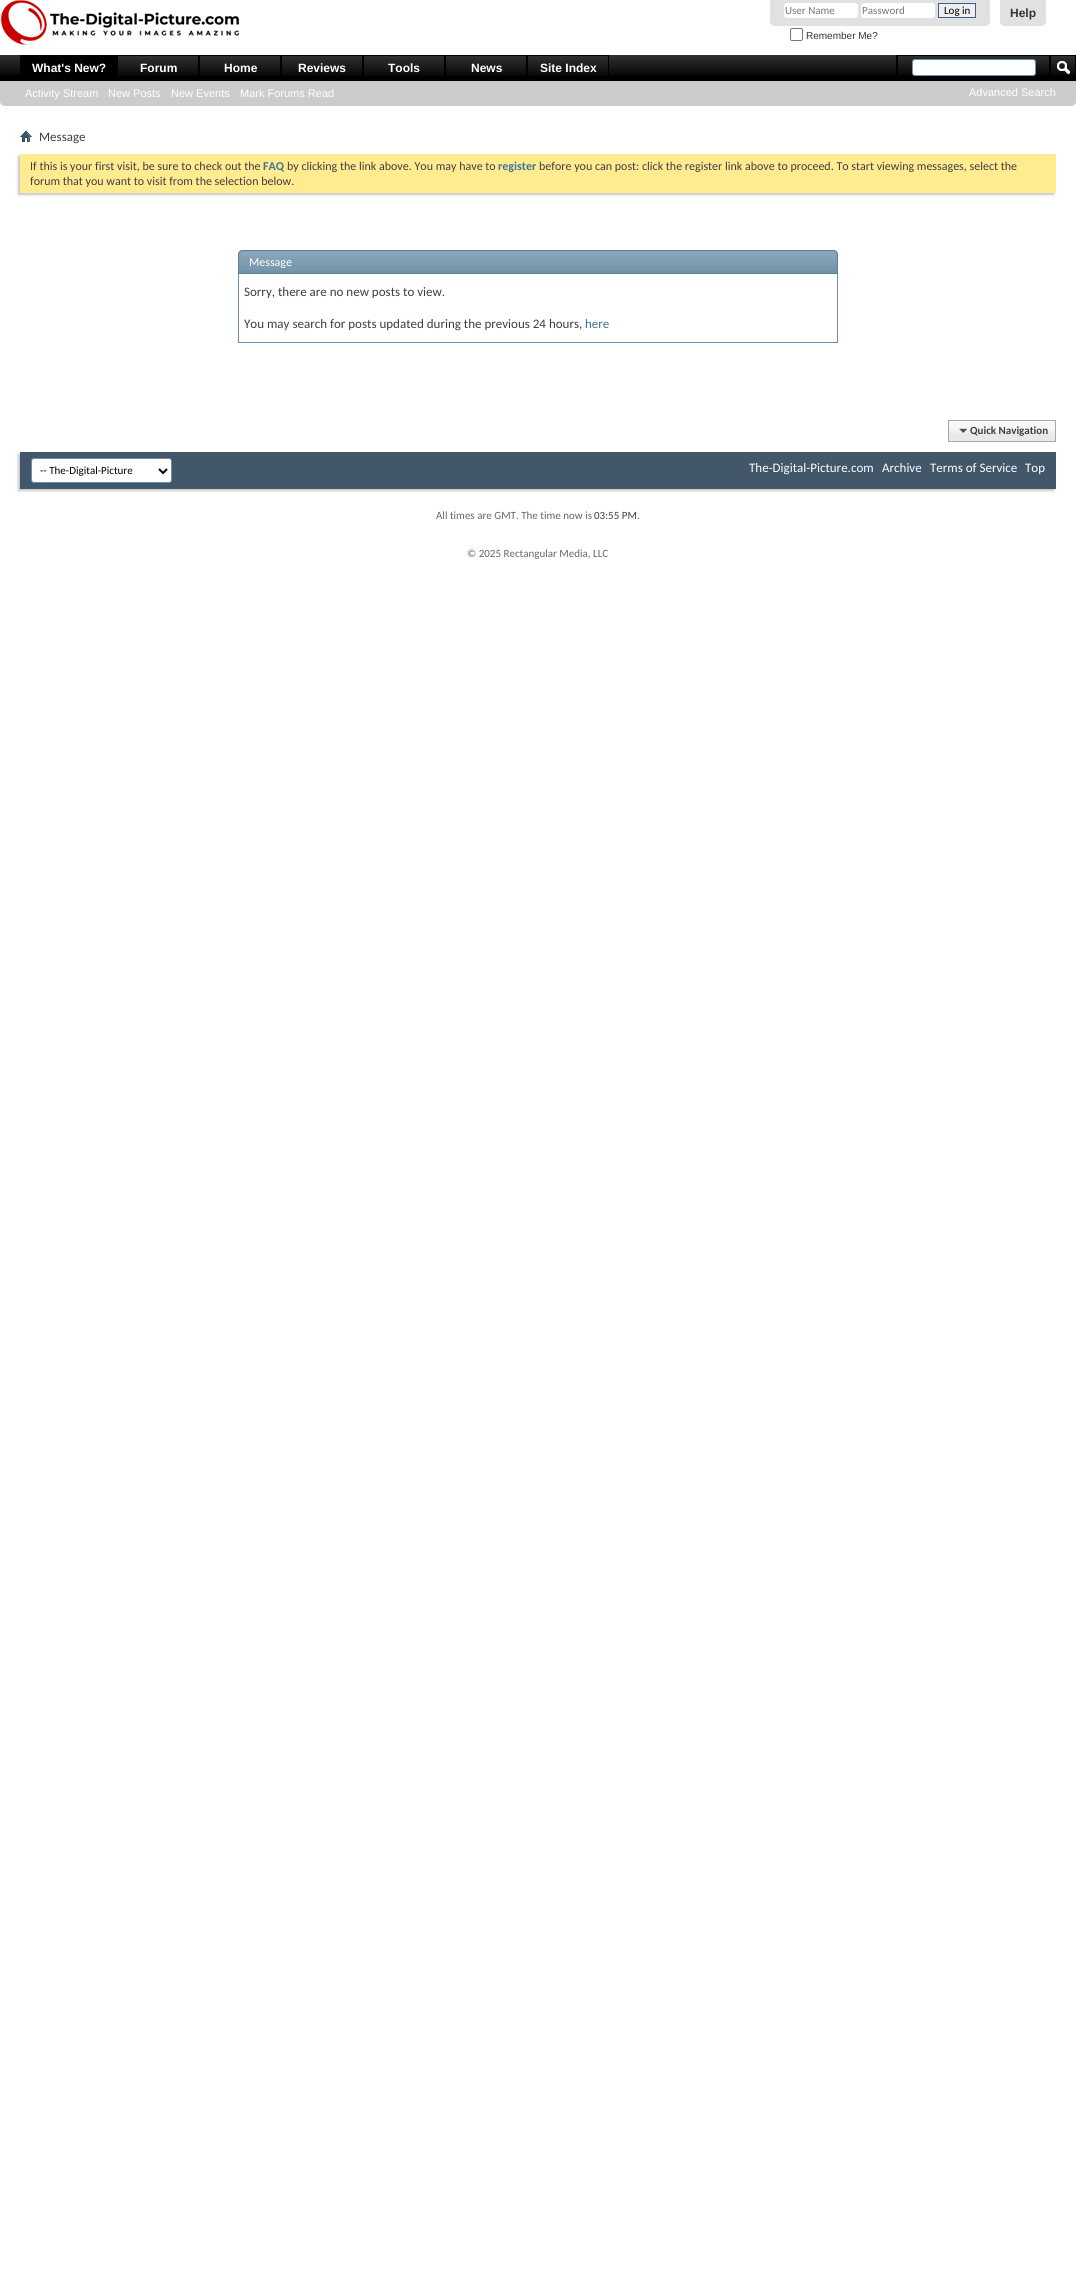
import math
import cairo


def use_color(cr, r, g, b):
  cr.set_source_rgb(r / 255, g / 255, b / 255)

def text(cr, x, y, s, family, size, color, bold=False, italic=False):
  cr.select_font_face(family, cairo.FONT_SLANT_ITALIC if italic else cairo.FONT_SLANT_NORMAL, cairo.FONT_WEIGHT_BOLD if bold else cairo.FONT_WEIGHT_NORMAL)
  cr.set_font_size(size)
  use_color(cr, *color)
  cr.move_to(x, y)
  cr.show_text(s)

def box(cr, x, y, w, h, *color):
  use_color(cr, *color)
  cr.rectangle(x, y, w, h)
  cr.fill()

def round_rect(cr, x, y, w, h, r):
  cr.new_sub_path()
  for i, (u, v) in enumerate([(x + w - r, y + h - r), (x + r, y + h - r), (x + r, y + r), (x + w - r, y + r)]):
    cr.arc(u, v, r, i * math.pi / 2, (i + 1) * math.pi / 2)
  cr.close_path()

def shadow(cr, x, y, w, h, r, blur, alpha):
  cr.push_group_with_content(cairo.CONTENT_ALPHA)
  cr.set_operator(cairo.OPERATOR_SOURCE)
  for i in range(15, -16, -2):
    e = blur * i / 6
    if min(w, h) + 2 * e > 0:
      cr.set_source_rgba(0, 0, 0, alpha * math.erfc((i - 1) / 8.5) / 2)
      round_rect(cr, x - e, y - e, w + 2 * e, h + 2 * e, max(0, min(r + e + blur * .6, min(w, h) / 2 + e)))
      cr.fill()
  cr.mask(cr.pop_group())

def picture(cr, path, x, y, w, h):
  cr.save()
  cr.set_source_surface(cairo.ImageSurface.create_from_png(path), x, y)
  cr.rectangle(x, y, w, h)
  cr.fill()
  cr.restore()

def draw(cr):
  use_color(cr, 255, 255, 255)
  cr.paint()
  picture(cr, "img_01.png", 0, 0, 240, 45)
  use_color(cr, 225, 225, 225)
  cr.new_path()
  cr.move_to(770, 0)
  cr.line_to(990, 0)
  cr.line_to(990, 21)
  cr.curve_to(990, 24, 988, 26, 985, 26)
  cr.line_to(775, 26)
  cr.curve_to(772, 26, 770, 24, 770, 21)
  cr.close_path()
  cr.fill()
  use_color(cr, 255, 255, 255)
  round_rect(cr, 784, 3, 74, 15, 3)
  cr.fill()
  round_rect(cr, 861, 3, 74, 15, 3)
  cr.fill()
  use_color(cr, 239, 239, 239)
  cr.rectangle(938.5, 3.5, 37, 14)
  cr.fill_preserve()
  use_color(cr, 65, 93, 141)
  cr.set_line_width(1)
  cr.stroke()
  round_rect(cr, 790.5, 28.5, 12, 12, 1.5)
  use_color(cr, 118, 118, 118)
  cr.stroke()
  use_color(cr, 225, 225, 225)
  cr.new_path()
  cr.move_to(1000, 0)
  cr.line_to(1046, 0)
  cr.line_to(1046, 21)
  cr.curve_to(1046, 24, 1044, 26, 1041, 26)
  cr.line_to(1005, 26)
  cr.curve_to(1002, 26, 1000, 24, 1000, 21)
  cr.close_path()
  cr.fill()
  use_color(cr, 204, 204, 204)
  cr.new_path()
  cr.move_to(0, 55)
  cr.line_to(1076, 55)
  cr.line_to(1076, 101)
  cr.curve_to(1076, 104, 1074, 106, 1071, 106)
  cr.line_to(5, 106)
  cr.curve_to(2, 106, 0, 104, 0, 101)
  cr.close_path()
  cr.fill()
  box(cr, 0, 55, 1076, 25, 0, 0, 0)
  picture(cr, "img_02.png", 0, 55, 1075, 20)
  box(cr, 116, 55, 1, 25, 0, 0, 0)
  box(cr, 20, 55, 1, 25, 0, 0, 0)
  box(cr, 21, 55, 95, 20, 0, 0, 0)
  box(cr, 198, 55, 2, 26, 0, 0, 0)
  box(cr, 118, 55, 80, 20, 0, 0, 0)
  picture(cr, "img_03.png", 118, 56, 80, 20)
  box(cr, 117, 55, 1, 26, 0, 0, 0)
  box(cr, 280, 55, 2, 26, 0, 0, 0)
  box(cr, 200, 55, 80, 20, 0, 0, 0)
  picture(cr, "img_03.png", 200, 56, 80, 20)
  box(cr, 362, 55, 2, 26, 0, 0, 0)
  box(cr, 282, 55, 80, 20, 0, 0, 0)
  picture(cr, "img_03.png", 282, 56, 80, 20)
  box(cr, 444, 55, 2, 26, 0, 0, 0)
  box(cr, 364, 55, 80, 20, 0, 0, 0)
  picture(cr, "img_03.png", 364, 56, 80, 20)
  box(cr, 526, 55, 2, 26, 0, 0, 0)
  box(cr, 446, 55, 80, 20, 0, 0, 0)
  picture(cr, "img_03.png", 446, 56, 80, 20)
  box(cr, 608, 55, 1, 26, 0, 0, 0)
  box(cr, 528, 55, 80, 20, 0, 0, 0)
  picture(cr, "img_03.png", 528, 56, 80, 20)
  box(cr, 0, 80, 1076, 1, 0, 0, 0)
  box(cr, 896, 55, 1, 25, 0, 0, 0)
  box(cr, 897, 55, 152, 1, 0, 0, 0)
  box(cr, 897, 55, 1, 25, 0, 0, 0)
  use_color(cr, 255, 255, 255)
  round_rect(cr, 912.5, 59.5, 123, 16, 2.5)
  cr.fill_preserve()
  use_color(cr, 107, 145, 171)
  cr.stroke()
  box(cr, 1049, 55, 1, 25, 0, 0, 0)
  box(cr, 1050, 55, 25, 1, 0, 0, 0)
  box(cr, 1050, 55, 1, 25, 0, 0, 0)
  picture(cr, "img_04.png", 1057, 61, 13, 14)
  picture(cr, "img_05.png", 20, 131, 12, 11)
  use_color(cr, 200, 200, 200)
  shadow(cr, 18, 156, 1036, 39, 0, 1, 1)
  box(cr, 20, 154, 1036, 39, 255, 235, 144)
  use_color(cr, 113, 146, 168)
  cr.new_path()
  cr.move_to(243, 250)
  cr.line_to(833, 250)
  cr.curve_to(836, 250, 838, 252, 838, 255)
  cr.line_to(838, 274)
  cr.line_to(238, 274)
  cr.line_to(238, 255)
  cr.curve_to(238, 252, 240, 250, 243, 250)
  cr.close_path()
  cr.fill()
  picture(cr, "img_06.png", 238, 251, 600, 20)
  cr.new_path()
  cr.move_to(243, 250.5)
  cr.line_to(833, 250.5)
  cr.curve_to(835.5, 250.5, 837.5, 252.5, 837.5, 255)
  cr.line_to(837.5, 273.5)
  cr.line_to(238.5, 273.5)
  cr.line_to(238.5, 255)
  cr.curve_to(238.5, 252.5, 240.5, 250.5, 243, 250.5)
  cr.close_path()
  use_color(cr, 90, 127, 151)
  cr.stroke()
  box(cr, 837, 274, 1, 69, 107, 145, 171)
  box(cr, 238, 342, 600, 1, 107, 145, 171)
  box(cr, 238, 274, 1, 69, 107, 145, 171)
  box(cr, 949, 421, 106, 20, 233, 233, 233)
  picture(cr, "img_07.png", 949, 421, 106, 12)
  cr.rectangle(948.5, 420.5, 107, 21)
  use_color(cr, 168, 168, 168)
  cr.stroke()
  picture(cr, "img_08.png", 959, 428, 9, 6)
  use_color(cr, 200, 200, 200)
  shadow(cr, 18, 454, 1036, 37, 0, 1, 1)
  box(cr, 20, 452, 1036, 37, 66, 87, 105)
  use_color(cr, 255, 255, 255)
  round_rect(cr, 31.5, 458.5, 140, 24, 2.5)
  cr.fill_preserve()
  use_color(cr, 107, 145, 171)
  cr.stroke()
  cr.new_path()
  cr.move_to(159, 469)
  cr.line_to(163, 473)
  cr.line_to(167, 469)
  use_color(cr, 0, 0, 0)
  cr.set_line_width(2)
  cr.stroke()
  text(cr, 785, 14, "User Name", "Carlito", 11, (119, 119, 119))
  text(cr, 862, 14, "Password", "Carlito", 11, (119, 119, 119))
  text(cr, 944, 14, "Log in", "Carlito", 11, (0, 0, 0))
  text(cr, 806, 39, "Remember Me?", "Liberation Sans", 10, (51, 51, 51))
  text(cr, 1010, 17, "Help", "Liberation Sans", 12, (51, 51, 51), bold=True)
  text(cr, 32, 72, "What's New?", "Liberation Sans", 12, (255, 255, 255), bold=True)
  text(cr, 140, 72, "Forum", "Liberation Sans", 12, (255, 255, 255), bold=True)
  text(cr, 224, 72, "Home", "Liberation Sans", 12, (255, 255, 255), bold=True)
  text(cr, 298, 72, "Reviews", "Liberation Sans", 12, (255, 255, 255), bold=True)
  text(cr, 388, 72, "Tools", "Liberation Sans", 12, (255, 255, 255), bold=True)
  text(cr, 471, 72, "News", "Liberation Sans", 12, (255, 255, 255), bold=True)
  text(cr, 540, 72, "Site Index", "Liberation Sans", 12, (255, 255, 255), bold=True)
  text(cr, 25, 97, "Activity Stream", "Liberation Sans", 11, (255, 255, 255))
  text(cr, 108, 97, "New Posts", "Liberation Sans", 11, (255, 255, 255))
  text(cr, 171, 97, "New Events", "Liberation Sans", 11, (255, 255, 255))
  text(cr, 240, 97, "Mark Forums Read", "Liberation Sans", 11, (255, 255, 255))
  text(cr, 969, 96, "Advanced Search", "Liberation Sans", 11, (255, 255, 255))
  text(cr, 39, 141, "Message", "Carlito", 13, (62, 62, 62))
  text(cr, 30, 170, "If this is your first visit, be sure to check out the", "Carlito", 12, (62, 62, 62))
  text(cr, 263, 170, "FAQ", "Carlito", 12, (65, 115, 148), bold=True)
  text(cr, 287, 170, "by clicking the link above. You may have to", "Carlito", 12, (62, 62, 62))
  text(cr, 498, 170, "register", "Carlito", 12, (65, 115, 148), bold=True)
  text(cr, 539, 170, "before you can post: click the register link above to proceed. To start viewing messages, select the", "Carlito", 12, (62, 62, 62))
  text(cr, 30, 185, "forum that you want to visit from the selection below.", "Carlito", 12, (62, 62, 62))
  text(cr, 249, 266, "Message", "Carlito", 12, (255, 255, 255))
  text(cr, 244, 296, "Sorry, there are no new posts to view.", "Carlito", 13, (62, 62, 62))
  text(cr, 244, 328, "You may search for posts updated during the previous 24 hours,", "Carlito", 13, (62, 62, 62))
  text(cr, 585, 328, "here", "Carlito", 13, (65, 115, 148))
  text(cr, 970, 434, "Quick Navigation", "Carlito", 11, (62, 62, 62), bold=True)
  text(cr, 40, 474, "-- The-Digital-Picture", "Carlito", 11, (0, 0, 0))
  text(cr, 749, 472, "The-Digital-Picture.com", "Carlito", 13, (255, 255, 255))
  text(cr, 882, 472, "Archive", "Carlito", 13, (255, 255, 255))
  text(cr, 930, 472, "Terms of Service", "Carlito", 13, (255, 255, 255))
  text(cr, 1025, 472, "Top", "Carlito", 13, (255, 255, 255))
  text(cr, 436, 519, "All times are GMT. The time now is", "Carlito", 11, (102, 102, 102))
  text(cr, 594, 519, "03:55 PM", "Carlito", 11, (62, 62, 62))
  text(cr, 637, 519, ".", "Carlito", 11, (102, 102, 102))
  text(cr, 467, 557, "© 2025 Rectangular Media, LLC", "Carlito", 11, (102, 102, 102))


surface = cairo.ImageSurface(cairo.FORMAT_RGB24, 1076, 2271)
cr = cairo.Context(surface)
options = cairo.FontOptions()
options.set_hint_metrics(cairo.HINT_METRICS_OFF)
options.set_hint_style(cairo.HINT_STYLE_NONE)
cr.set_font_options(options)
cr.set_miter_limit(4)
draw(cr)
surface.write_to_png("out.png")
